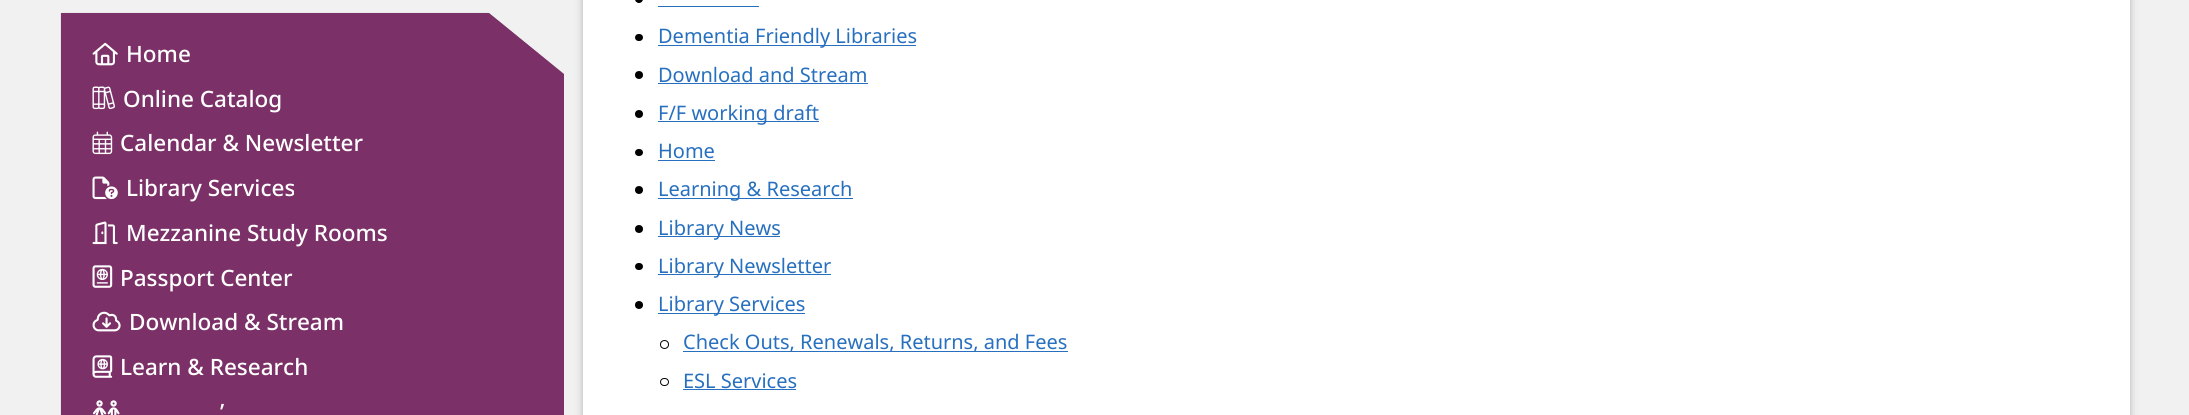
import math
import cairo


def use_color(cr, r, g, b):
  cr.set_source_rgb(r / 255, g / 255, b / 255)

def text(cr, x, y, s, family, size, color, bold=False, italic=False):
  cr.select_font_face(family, cairo.FONT_SLANT_ITALIC if italic else cairo.FONT_SLANT_NORMAL, cairo.FONT_WEIGHT_BOLD if bold else cairo.FONT_WEIGHT_NORMAL)
  cr.set_font_size(size)
  use_color(cr, *color)
  cr.move_to(x, y)
  cr.show_text(s)

def box(cr, x, y, w, h, *color):
  use_color(cr, *color)
  cr.rectangle(x, y, w, h)
  cr.fill()

def round_rect(cr, x, y, w, h, r):
  cr.new_sub_path()
  for i, (u, v) in enumerate([(x + w - r, y + h - r), (x + r, y + h - r), (x + r, y + r), (x + w - r, y + r)]):
    cr.arc(u, v, r, i * math.pi / 2, (i + 1) * math.pi / 2)
  cr.close_path()

def shadow(cr, x, y, w, h, r, blur, alpha):
  cr.push_group_with_content(cairo.CONTENT_ALPHA)
  cr.set_operator(cairo.OPERATOR_SOURCE)
  for i in range(15, -16, -2):
    e = blur * i / 6
    if min(w, h) + 2 * e > 0:
      cr.set_source_rgba(0, 0, 0, alpha * math.erfc((i - 1) / 8.5) / 2)
      round_rect(cr, x - e, y - e, w + 2 * e, h + 2 * e, max(0, min(r + e + blur * .6, min(w, h) / 2 + e)))
      cr.fill()
  cr.mask(cr.pop_group())

def picture(cr, path, x, y, w, h):
  cr.save()
  cr.set_source_surface(cairo.ImageSurface.create_from_png(path), x, y)
  cr.rectangle(x, y, w, h)
  cr.fill()
  cr.restore()

def draw(cr):
  use_color(cr, 241, 241, 241)
  cr.paint()
  cr.save()
  cr.new_path()
  cr.move_to(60.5, 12.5)
  cr.line_to(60.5, 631.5)
  cr.line_to(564, 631.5)
  cr.line_to(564, 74.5)
  cr.line_to(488.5, 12.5)
  cr.close_path()
  cr.clip()
  use_color(cr, 0, 0, 0)
  shadow(cr, 61, 15, 503, 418, 0, 6, 0.12)
  shadow(cr, 61, 15, 503, 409, 0, 3, 0.16)
  cr.restore()
  use_color(cr, 123, 48, 103)
  cr.new_path()
  cr.move_to(61, 13)
  cr.line_to(61, 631)
  cr.line_to(564, 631)
  cr.line_to(564, 74)
  cr.line_to(489, 13)
  cr.close_path()
  cr.fill()
  picture(cr, "img_01.png", 92, 42, 26, 24)
  picture(cr, "img_02.png", 92, 86, 23, 24)
  picture(cr, "img_03.png", 92, 131, 21, 24)
  picture(cr, "img_04.png", 92, 176, 26, 24)
  picture(cr, "img_05.png", 92, 221, 26, 24)
  picture(cr, "img_06.png", 92, 265, 21, 23)
  picture(cr, "img_07.png", 92, 311, 29, 21)
  picture(cr, "img_08.png", 92, 355, 21, 23)
  picture(cr, "img_09.png", 92, 400, 28, 15)
  use_color(cr, 0, 0, 0)
  shadow(cr, 583, -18, 1547, 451, 0, 6, 0.12)
  shadow(cr, 583, -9, 1547, 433, 0, 3, 0.16)
  box(cr, 583, 0, 1547, 415, 255, 255, 255)
  use_color(cr, 0, 0, 0)
  round_rect(cr, 635, -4, 8, 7, 4)
  cr.fill()
  box(cr, 658, 6, 101, 1, 39, 111, 191)
  use_color(cr, 0, 0, 0)
  round_rect(cr, 635, 34, 8, 7, 3.5)
  cr.fill()
  box(cr, 658, 45, 258, 1, 39, 111, 191)
  use_color(cr, 0, 0, 0)
  cr.arc(639, 75, 4, 0, 2 * math.pi)
  cr.fill()
  box(cr, 658, 83, 210, 1, 39, 111, 191)
  use_color(cr, 0, 0, 0)
  cr.arc(639, 114, 4, 0, 2 * math.pi)
  cr.fill()
  box(cr, 658, 121, 161, 1, 39, 111, 191)
  use_color(cr, 0, 0, 0)
  round_rect(cr, 635, 149, 8, 7, 3.5)
  cr.fill()
  box(cr, 658, 160, 57, 1, 39, 111, 191)
  use_color(cr, 0, 0, 0)
  cr.arc(639, 190, 4, 0, 2 * math.pi)
  cr.fill()
  box(cr, 658, 198, 195, 1, 39, 111, 191)
  use_color(cr, 0, 0, 0)
  cr.arc(639, 229, 4, 0, 2 * math.pi)
  cr.fill()
  box(cr, 658, 236, 122, 1, 39, 111, 191)
  use_color(cr, 0, 0, 0)
  round_rect(cr, 635, 263, 8, 7, 3.5)
  cr.fill()
  box(cr, 658, 274, 173, 1, 39, 111, 191)
  use_color(cr, 0, 0, 0)
  cr.arc(639, 305, 4, 0, 2 * math.pi)
  cr.fill()
  box(cr, 658, 313, 147, 1, 39, 111, 191)
  cr.arc(664.5, 344.5, 4, 0, 2 * math.pi)
  use_color(cr, 0, 0, 0)
  cr.set_line_width(1)
  cr.stroke()
  box(cr, 683, 351, 385, 1, 39, 111, 191)
  round_rect(cr, 660.5, 378.5, 8, 7, 3.5)
  use_color(cr, 0, 0, 0)
  cr.stroke()
  box(cr, 683, 389, 113, 1, 39, 111, 191)
  text(cr, 126, 62, "Home", "Noto Sans Medium", 22.5, (255, 255, 255))
  text(cr, 123, 107, "Online Catalog", "Noto Sans Medium", 22.5, (255, 255, 255))
  text(cr, 120, 151, "Calendar & Newsletter", "Noto Sans Medium", 22.5, (255, 255, 255))
  text(cr, 126, 196, "Library Services", "Noto Sans Medium", 22.5, (255, 255, 255))
  text(cr, 126, 241, "Mezzanine Study Rooms", "Noto Sans Medium", 22.5, (255, 255, 255))
  text(cr, 120, 286, "Passport Center", "Noto Sans Medium", 22.5, (255, 255, 255))
  text(cr, 129, 330, "Download & Stream", "Noto Sans Medium", 22.5, (255, 255, 255))
  text(cr, 120, 375, "Learn & Research", "Noto Sans Medium", 22.5, (255, 255, 255))
  text(cr, 220, 420, "’", "Noto Sans Medium", 22.5, (255, 255, 255))
  text(cr, 658, 43, "Dementia Friendly Libraries", "Noto Sans", 20, (39, 111, 191))
  text(cr, 658, 82, "Download and Stream", "Noto Sans", 20, (39, 111, 191))
  text(cr, 658, 120, "F/F working draft", "Noto Sans", 20, (39, 111, 191))
  text(cr, 658, 158, "Home", "Noto Sans", 20, (39, 111, 191))
  text(cr, 658, 196, "Learning & Research", "Noto Sans", 20, (39, 111, 191))
  text(cr, 658, 235, "Library News", "Noto Sans", 20, (39, 111, 191))
  text(cr, 658, 273, "Library Newsletter", "Noto Sans", 20, (39, 111, 191))
  text(cr, 658, 311, "Library Services", "Noto Sans", 20, (39, 111, 191))
  text(cr, 683, 349, "Check Outs, Renewals, Returns, and Fees", "Noto Sans", 20, (39, 111, 191))
  text(cr, 683, 388, "ESL Services", "Noto Sans", 20, (39, 111, 191))


surface = cairo.ImageSurface(cairo.FORMAT_RGB24, 2189, 415)
cr = cairo.Context(surface)
options = cairo.FontOptions()
options.set_hint_metrics(cairo.HINT_METRICS_OFF)
options.set_hint_style(cairo.HINT_STYLE_NONE)
cr.set_font_options(options)
cr.set_miter_limit(4)
draw(cr)
surface.write_to_png("out.png")
